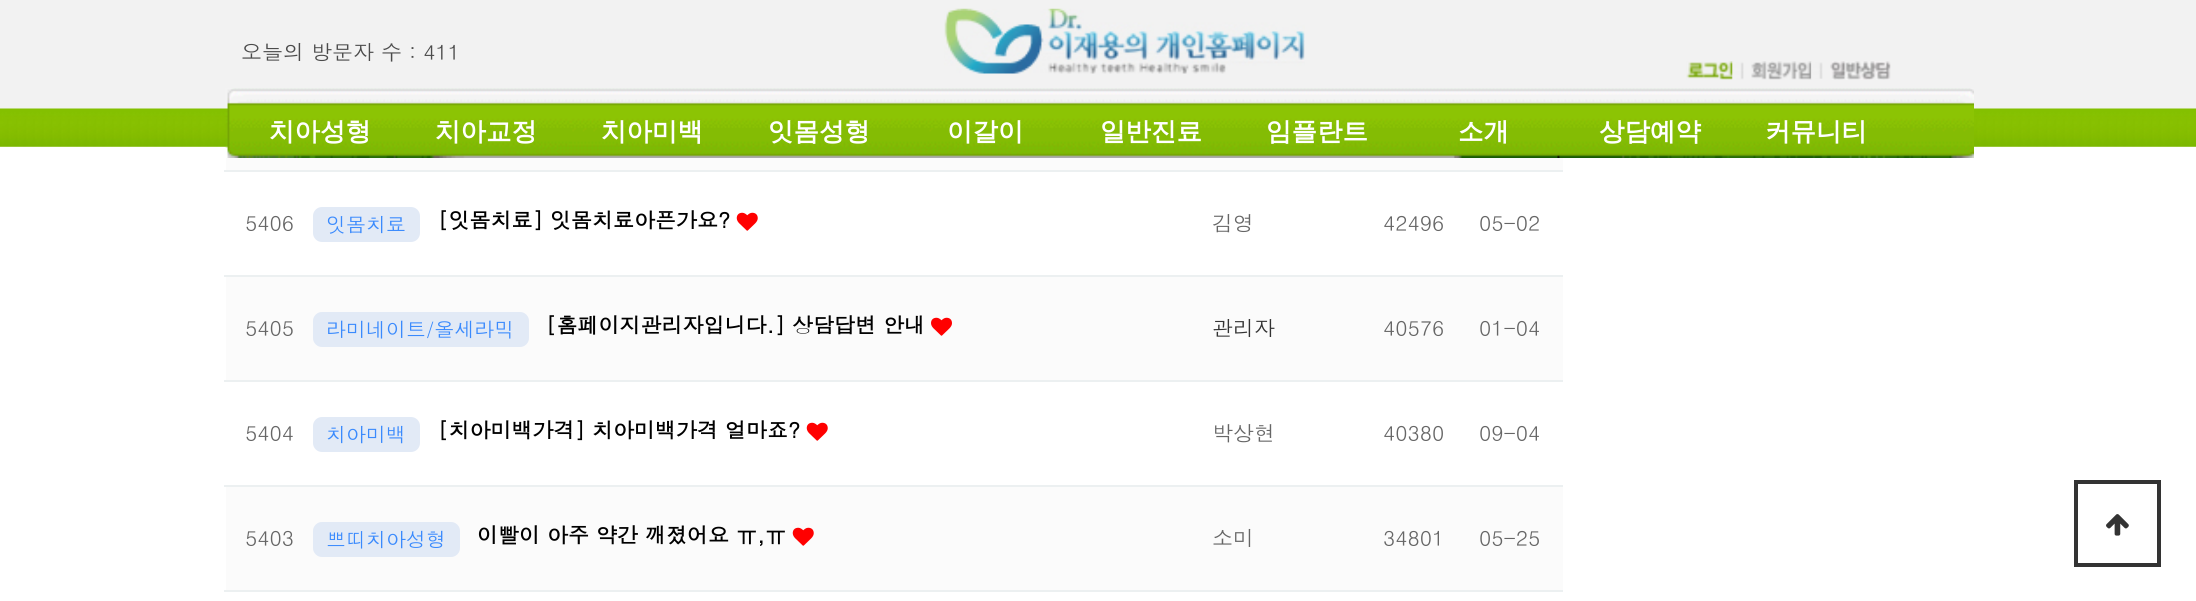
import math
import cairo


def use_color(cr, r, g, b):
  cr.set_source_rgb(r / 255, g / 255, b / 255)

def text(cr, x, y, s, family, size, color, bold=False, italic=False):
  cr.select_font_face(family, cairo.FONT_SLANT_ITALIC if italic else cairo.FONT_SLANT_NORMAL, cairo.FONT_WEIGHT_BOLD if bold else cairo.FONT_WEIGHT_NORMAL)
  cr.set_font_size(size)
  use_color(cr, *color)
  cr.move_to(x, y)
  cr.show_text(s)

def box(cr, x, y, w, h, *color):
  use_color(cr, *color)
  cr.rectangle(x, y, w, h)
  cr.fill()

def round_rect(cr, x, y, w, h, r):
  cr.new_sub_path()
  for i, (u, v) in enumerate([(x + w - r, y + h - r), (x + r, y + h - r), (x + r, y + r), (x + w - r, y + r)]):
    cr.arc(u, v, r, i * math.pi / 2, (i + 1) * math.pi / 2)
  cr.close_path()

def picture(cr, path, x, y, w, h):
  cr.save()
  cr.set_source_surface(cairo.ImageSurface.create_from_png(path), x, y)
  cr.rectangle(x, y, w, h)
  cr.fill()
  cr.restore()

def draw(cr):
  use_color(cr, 255, 255, 255)
  cr.paint()
  picture(cr, "img_01.png", 0, 0, 2196, 147)
  picture(cr, "img_02.png", 944, 8, 361, 66)
  picture(cr, "img_03.png", 1686, 61, 48, 19)
  picture(cr, "img_04.png", 1731, 61, 13, 19)
  picture(cr, "img_05.png", 1751, 61, 61, 19)
  picture(cr, "img_06.png", 1810, 62, 13, 17)
  picture(cr, "img_07.png", 1830, 61, 61, 19)
  box(cr, 226, 147, 87, 23, 251, 251, 251)
  picture(cr, "img_08.png", 225, 88, 1749, 70)
  box(cr, 313, 158, 1250, 12, 251, 251, 251)
  use_color(cr, 226, 234, 246)
  round_rect(cr, 313, 207, 107, 35, 9)
  cr.fill()
  picture(cr, "img_09.png", 736, 212, 22, 19)
  box(cr, 224, 170, 1339, 2, 236, 240, 241)
  box(cr, 226, 277, 1337, 103, 251, 251, 251)
  use_color(cr, 226, 234, 246)
  round_rect(cr, 313, 312, 216, 35, 9)
  cr.fill()
  picture(cr, "img_10.png", 931, 317, 21, 19)
  box(cr, 224, 275, 1339, 2, 236, 240, 241)
  use_color(cr, 226, 234, 246)
  round_rect(cr, 313, 417, 107, 35, 9)
  cr.fill()
  picture(cr, "img_09.png", 806, 422, 22, 19)
  box(cr, 224, 380, 1339, 2, 236, 240, 241)
  box(cr, 226, 487, 1337, 103, 251, 251, 251)
  use_color(cr, 226, 234, 246)
  round_rect(cr, 313, 522, 147, 35, 9)
  cr.fill()
  picture(cr, "img_11.png", 792, 527, 22, 19)
  box(cr, 224, 485, 1339, 2, 236, 240, 241)
  box(cr, 224, 590, 1339, 2, 236, 240, 241)
  cr.rectangle(2076, 482, 83, 83)
  use_color(cr, 51, 51, 51)
  cr.set_line_width(4)
  cr.stroke()
  picture(cr, "img_12.png", 2106, 514, 23, 22)
  text(cr, 241, 60, "오늘의 방문자 수 : 411", "Dotum", 21, (75, 75, 75))
  text(cr, 269, 140, "치아성형", "WenQuanYi Zen Hei", 25.5, (255, 255, 255), bold=True)
  text(cr, 435, 140, "치아교정", "WenQuanYi Zen Hei", 25.5, (255, 255, 255), bold=True)
  text(cr, 601, 140, "치아미백", "WenQuanYi Zen Hei", 25.5, (255, 255, 255), bold=True)
  text(cr, 768, 140, "잇몸성형", "WenQuanYi Zen Hei", 25.5, (255, 255, 255), bold=True)
  text(cr, 947, 140, "이갈이", "WenQuanYi Zen Hei", 25.5, (255, 255, 255), bold=True)
  text(cr, 1100, 140, "일반진료", "WenQuanYi Zen Hei", 25.5, (255, 255, 255), bold=True)
  text(cr, 1266, 140, "임플란트", "WenQuanYi Zen Hei", 25.5, (255, 255, 255), bold=True)
  text(cr, 1458, 140, "소개", "WenQuanYi Zen Hei", 25.5, (255, 255, 255), bold=True)
  text(cr, 1599, 140, "상담예약", "WenQuanYi Zen Hei", 25.5, (255, 255, 255), bold=True)
  text(cr, 1765, 140, "커뮤니티", "WenQuanYi Zen Hei", 25.5, (255, 255, 255), bold=True)
  text(cr, 245, 231, "5406", "Dotum", 21, (102, 102, 102))
  text(cr, 326, 232, "잇몸치료", "Dotum", 20, (58, 138, 253))
  text(cr, 438, 228, "[잇몸치료] 잇몸치료아픈가요?", "Dotum", 21, (0, 0, 0), bold=True)
  text(cr, 1212, 231, "김영", "Dotum", 21, (102, 102, 102))
  text(cr, 1383, 231, "42496", "Dotum", 21, (102, 102, 102))
  text(cr, 1479, 231, "05-02", "Dotum", 21, (102, 102, 102))
  text(cr, 245, 336, "5405", "Dotum", 21, (102, 102, 102))
  text(cr, 326, 337, "라미네이트/올세라믹", "Dotum", 20, (58, 138, 253))
  text(cr, 546, 333, "[홈페이지관리자입니다.] 상담답변 안내", "Dotum", 21, (0, 0, 0), bold=True)
  text(cr, 1212, 336, "관리자", "Dotum", 21, (51, 51, 51))
  text(cr, 1383, 336, "40576", "Dotum", 21, (102, 102, 102))
  text(cr, 1479, 336, "01-04", "Dotum", 21, (102, 102, 102))
  text(cr, 245, 441, "5404", "Dotum", 21, (102, 102, 102))
  text(cr, 326, 442, "치아미백", "Dotum", 20, (58, 138, 253))
  text(cr, 438, 438, "[치아미백가격] 치아미백가격 얼마죠?", "Dotum", 21, (0, 0, 0), bold=True)
  text(cr, 1212, 441, "박상현", "Dotum", 21, (102, 102, 102))
  text(cr, 1383, 441, "40380", "Dotum", 21, (102, 102, 102))
  text(cr, 1479, 441, "09-04", "Dotum", 21, (102, 102, 102))
  text(cr, 245, 546, "5403", "Dotum", 21, (102, 102, 102))
  text(cr, 326, 547, "쁘띠치아성형", "Dotum", 20, (58, 138, 253))
  text(cr, 477, 543, "이빨이 아주 약간 깨졌어요 ㅠ,ㅠ", "Dotum", 21, (0, 0, 0), bold=True)
  text(cr, 1212, 546, "소미", "Dotum", 21, (102, 102, 102))
  text(cr, 1383, 546, "34801", "Dotum", 21, (102, 102, 102))
  text(cr, 1479, 546, "05-25", "Dotum", 21, (102, 102, 102))


surface = cairo.ImageSurface(cairo.FORMAT_RGB24, 2196, 601)
cr = cairo.Context(surface)
options = cairo.FontOptions()
options.set_hint_metrics(cairo.HINT_METRICS_OFF)
options.set_hint_style(cairo.HINT_STYLE_NONE)
cr.set_font_options(options)
cr.set_miter_limit(4)
draw(cr)
surface.write_to_png("out.png")
